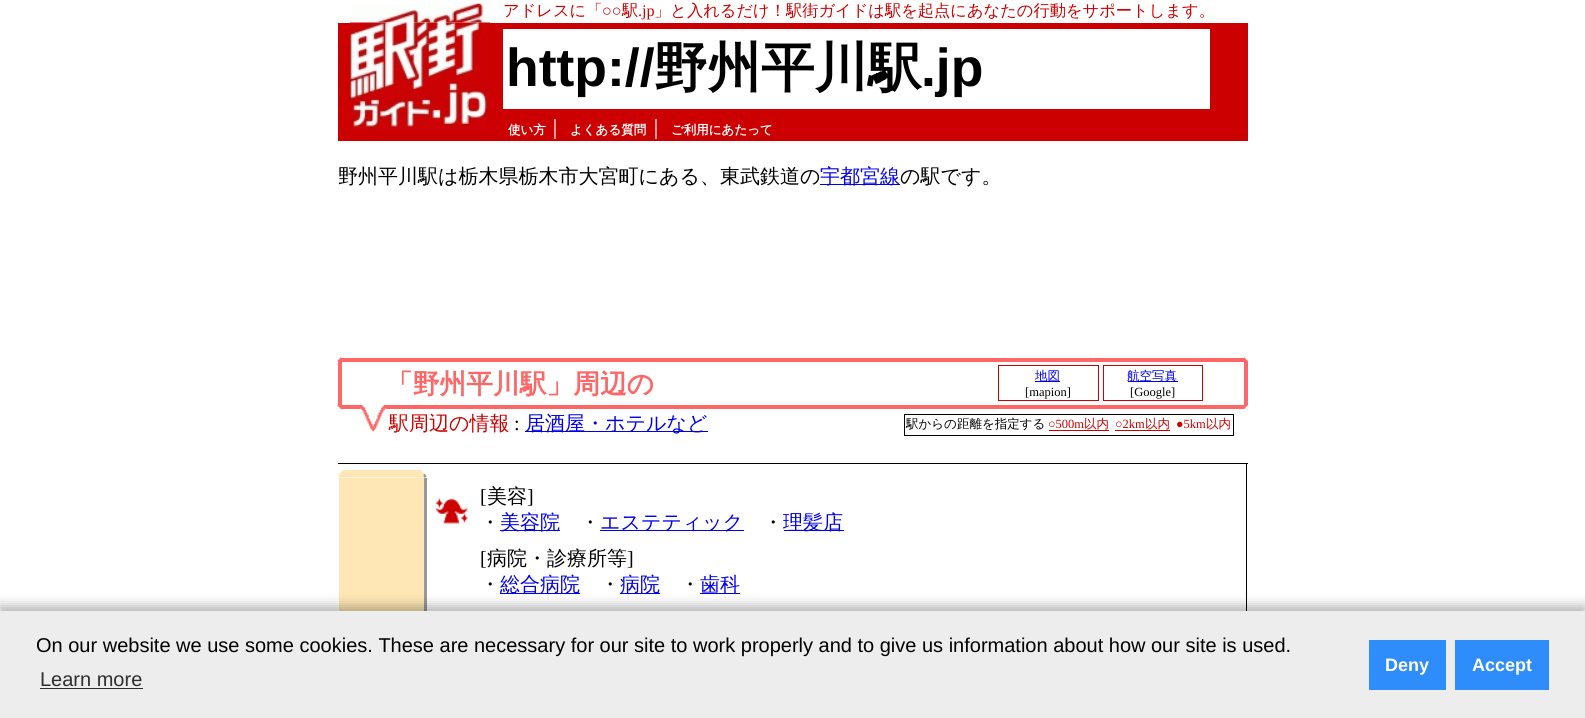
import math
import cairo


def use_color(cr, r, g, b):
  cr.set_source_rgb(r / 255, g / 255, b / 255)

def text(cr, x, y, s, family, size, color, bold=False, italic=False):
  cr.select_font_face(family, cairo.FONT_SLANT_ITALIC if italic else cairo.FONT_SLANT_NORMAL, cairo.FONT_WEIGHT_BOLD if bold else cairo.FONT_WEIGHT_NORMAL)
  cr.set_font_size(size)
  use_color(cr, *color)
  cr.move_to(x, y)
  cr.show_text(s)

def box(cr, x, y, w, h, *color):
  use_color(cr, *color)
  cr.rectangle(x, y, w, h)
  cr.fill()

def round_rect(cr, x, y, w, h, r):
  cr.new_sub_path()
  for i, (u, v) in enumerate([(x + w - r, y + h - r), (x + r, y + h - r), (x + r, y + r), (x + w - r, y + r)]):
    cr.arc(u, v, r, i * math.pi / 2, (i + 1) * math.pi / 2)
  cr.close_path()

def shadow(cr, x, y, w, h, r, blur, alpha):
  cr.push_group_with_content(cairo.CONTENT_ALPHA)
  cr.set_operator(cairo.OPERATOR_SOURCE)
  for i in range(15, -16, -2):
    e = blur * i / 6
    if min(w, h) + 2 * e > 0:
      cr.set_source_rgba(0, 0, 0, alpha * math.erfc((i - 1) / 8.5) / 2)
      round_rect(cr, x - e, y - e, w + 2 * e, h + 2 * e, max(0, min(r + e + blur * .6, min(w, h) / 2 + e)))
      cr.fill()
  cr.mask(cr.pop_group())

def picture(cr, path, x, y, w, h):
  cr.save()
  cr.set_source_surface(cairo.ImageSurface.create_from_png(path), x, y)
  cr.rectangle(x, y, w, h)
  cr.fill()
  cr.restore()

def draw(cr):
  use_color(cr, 255, 255, 255)
  cr.paint()
  picture(cr, "img_01.png", 351, 3, 139, 20)
  box(cr, 338, 23, 12, 118, 204, 0, 0)
  picture(cr, "img_02.png", 350, 22, 140, 93)
  box(cr, 490, 23, 758, 92, 204, 0, 0)
  box(cr, 503, 29, 707, 80, 255, 255, 255)
  box(cr, 350, 115, 898, 26, 204, 0, 0)
  picture(cr, "img_03.png", 352, 115, 135, 14)
  box(cr, 820, 184, 80, 1, 0, 0, 238)
  box(cr, 341, 358, 903, 4, 255, 102, 102)
  box(cr, 338, 361, 4, 44, 255, 102, 102)
  picture(cr, "img_04.png", 337, 357, 5, 5)
  picture(cr, "img_05.png", 1243, 357, 5, 4)
  cr.rectangle(998.5, 365.5, 100, 35)
  use_color(cr, 204, 0, 0)
  cr.set_line_width(1)
  cr.stroke()
  box(cr, 1035, 381, 25, 1, 0, 0, 238)
  cr.rectangle(1103.5, 365.5, 99, 35)
  use_color(cr, 204, 0, 0)
  cr.stroke()
  box(cr, 1128, 381, 50, 1, 0, 0, 238)
  box(cr, 1244, 361, 4, 44, 255, 102, 102)
  picture(cr, "img_06.png", 337, 405, 4, 4)
  box(cr, 341, 405, 19, 4, 255, 102, 102)
  box(cr, 386, 405, 858, 4, 255, 102, 102)
  picture(cr, "img_07.png", 360, 405, 27, 27)
  picture(cr, "img_08.png", 1244, 405, 4, 4)
  box(cr, 525, 431, 183, 1, 0, 0, 238)
  cr.rectangle(904.5, 414.5, 329, 21)
  use_color(cr, 0, 0, 0)
  cr.stroke()
  box(cr, 1049, 430, 60, 1, 204, 0, 0)
  box(cr, 1115, 430, 55, 1, 204, 0, 0)
  box(cr, 338, 463, 910, 1, 0, 0, 0)
  picture(cr, "img_09.png", 338, 470, 89, 8)
  box(cr, 1246, 464, 1, 147, 0, 0, 0)
  box(cr, 339, 478, 85, 133, 255, 230, 180)
  box(cr, 424, 478, 3, 133, 153, 153, 153)
  picture(cr, "img_10.png", 435, 497, 33, 27)
  box(cr, 500, 530, 60, 1, 0, 0, 238)
  box(cr, 600, 530, 144, 1, 0, 0, 238)
  box(cr, 784, 530, 60, 1, 0, 0, 238)
  box(cr, 500, 593, 80, 1, 0, 0, 238)
  box(cr, 620, 593, 40, 1, 0, 0, 238)
  box(cr, 700, 593, 40, 1, 0, 0, 238)
  use_color(cr, 0, 0, 0)
  shadow(cr, 0, 606, 1585, 108, 0, 6, 0.3)
  box(cr, 0, 611, 1585, 107, 237, 237, 237)
  box(cr, 40, 688, 103, 1, 47, 47, 47)
  box(cr, 1369, 640, 77, 50, 47, 140, 251)
  box(cr, 1455, 640, 94, 50, 47, 140, 251)
  text(cr, 503, 16, "アドレスに「", "WenQuanYi Zen Hei Medium", 16.25, (204, 0, 0))
  text(cr, 602, 16, "○○", "Liberation Serif", 16.25, (204, 0, 0))
  text(cr, 622, 16, "駅", "WenQuanYi Zen Hei Medium", 16.25, (204, 0, 0))
  text(cr, 638, 16, ".jp", "Liberation Serif", 16.25, (204, 0, 0))
  text(cr, 654, 16, "」と入れるだけ！駅街ガイドは駅を起点にあなたの行動をサポートします。", "WenQuanYi Zen Hei Medium", 16.25, (204, 0, 0))
  text(cr, 506, 86, "http://", "Liberation Sans", 53.5, (0, 0, 0), bold=True)
  text(cr, 654, 86, "野州平川駅", "WenQuanYi Zen Hei", 53.5, (0, 0, 0), bold=True)
  text(cr, 921, 86, ".jp", "Liberation Sans", 53.5, (0, 0, 0), bold=True)
  text(cr, 508, 134, "使い方", "WenQuanYi Zen Hei", 12.5, (255, 255, 255), bold=True)
  text(cr, 545, 134, "｜", "WenQuanYi Zen Hei Medium", 20, (255, 255, 255))
  text(cr, 570, 134, "よくある質問", "WenQuanYi Zen Hei", 12.5, (255, 255, 255), bold=True)
  text(cr, 646, 134, "｜", "WenQuanYi Zen Hei Medium", 20, (255, 255, 255))
  text(cr, 671, 134, "ご利用にあたって", "WenQuanYi Zen Hei", 12.5, (255, 255, 255), bold=True)
  text(cr, 338, 183, "野州平川駅は栃木県栃木市大宮町にある、東武鉄道の", "WenQuanYi Zen Hei Medium", 20, (0, 0, 0))
  text(cr, 820, 183, "宇都宮線", "WenQuanYi Zen Hei Medium", 20, (0, 0, 238))
  text(cr, 900, 183, "の駅です。", "WenQuanYi Zen Hei Medium", 20, (0, 0, 0))
  text(cr, 386, 393, "「野州平川駅」周辺の", "WenQuanYi Zen Hei", 26.75, (255, 102, 102), bold=True)
  text(cr, 1035, 380, "地図", "WenQuanYi Zen Hei Medium", 12.5, (0, 0, 238))
  text(cr, 1025, 396, "[mapion]", "Liberation Serif", 12.5, (0, 0, 0))
  text(cr, 1127, 380, "航空写真", "WenQuanYi Zen Hei Medium", 12.5, (0, 0, 238))
  text(cr, 1130, 396, "[Google]", "Liberation Serif", 12.5, (0, 0, 0))
  text(cr, 389, 430, "駅周辺の情報", "WenQuanYi Zen Hei Medium", 20, (204, 0, 0))
  text(cr, 514, 430, ":", "Liberation Serif", 20, (0, 0, 0))
  text(cr, 525, 430, "居酒屋・ホテルなど", "WenQuanYi Zen Hei Medium", 20, (0, 0, 238))
  text(cr, 906, 428, "駅からの距離を指定する", "WenQuanYi Zen Hei Medium", 12.5, (0, 0, 0))
  text(cr, 1048, 428, "○500m", "Liberation Serif", 12.5, (204, 0, 0))
  text(cr, 1084, 428, "以内", "WenQuanYi Zen Hei Medium", 12.5, (204, 0, 0))
  text(cr, 1115, 428, "○2km", "Liberation Serif", 12.5, (204, 0, 0))
  text(cr, 1145, 428, "以内", "WenQuanYi Zen Hei Medium", 12.5, (204, 0, 0))
  text(cr, 1176, 428, "●5km", "Liberation Serif", 12.5, (204, 0, 0))
  text(cr, 1206, 428, "以内", "WenQuanYi Zen Hei Medium", 12.5, (204, 0, 0))
  text(cr, 480, 503, "[", "Liberation Serif", 20, (0, 0, 0))
  text(cr, 487, 503, "美容", "WenQuanYi Zen Hei Medium", 20, (0, 0, 0))
  text(cr, 527, 503, "]", "Liberation Serif", 20, (0, 0, 0))
  text(cr, 480, 529, "・", "WenQuanYi Zen Hei Medium", 20, (0, 0, 0))
  text(cr, 500, 529, "美容院", "WenQuanYi Zen Hei Medium", 20, (0, 0, 238))
  text(cr, 580, 529, "・", "WenQuanYi Zen Hei Medium", 20, (0, 0, 0))
  text(cr, 600, 529, "エステティック", "WenQuanYi Zen Hei Medium", 20, (0, 0, 238))
  text(cr, 763, 529, "・", "WenQuanYi Zen Hei Medium", 20, (0, 0, 0))
  text(cr, 783, 529, "理髪店", "WenQuanYi Zen Hei Medium", 20, (0, 0, 238))
  text(cr, 480, 565, "[", "Liberation Serif", 20, (0, 0, 0))
  text(cr, 487, 565, "病院・診療所等", "WenQuanYi Zen Hei Medium", 20, (0, 0, 0))
  text(cr, 627, 565, "]", "Liberation Serif", 20, (0, 0, 0))
  text(cr, 480, 591, "・", "WenQuanYi Zen Hei Medium", 20, (0, 0, 0))
  text(cr, 500, 591, "総合病院", "WenQuanYi Zen Hei Medium", 20, (0, 0, 238))
  text(cr, 600, 591, "・", "WenQuanYi Zen Hei Medium", 20, (0, 0, 0))
  text(cr, 620, 591, "病院", "WenQuanYi Zen Hei Medium", 20, (0, 0, 238))
  text(cr, 680, 591, "・", "WenQuanYi Zen Hei Medium", 20, (0, 0, 0))
  text(cr, 700, 591, "歯科", "WenQuanYi Zen Hei Medium", 20, (0, 0, 238))
  text(cr, 36, 652, "On our website we use some cookies. These are necessary for our site to work properly and to give us information about how our site is used.", "Liberation Sans", 20, (0, 0, 0))
  text(cr, 40, 686, "Learn more", "Liberation Sans", 20, (47, 47, 47))
  text(cr, 1385, 671, "Deny", "Liberation Sans", 18, (255, 255, 255), bold=True)
  text(cr, 1472, 671, "Accept", "Liberation Sans", 18, (255, 255, 255), bold=True)


surface = cairo.ImageSurface(cairo.FORMAT_RGB24, 1585, 718)
cr = cairo.Context(surface)
options = cairo.FontOptions()
options.set_hint_metrics(cairo.HINT_METRICS_OFF)
options.set_hint_style(cairo.HINT_STYLE_NONE)
cr.set_font_options(options)
cr.set_miter_limit(4)
draw(cr)
surface.write_to_png("out.png")
